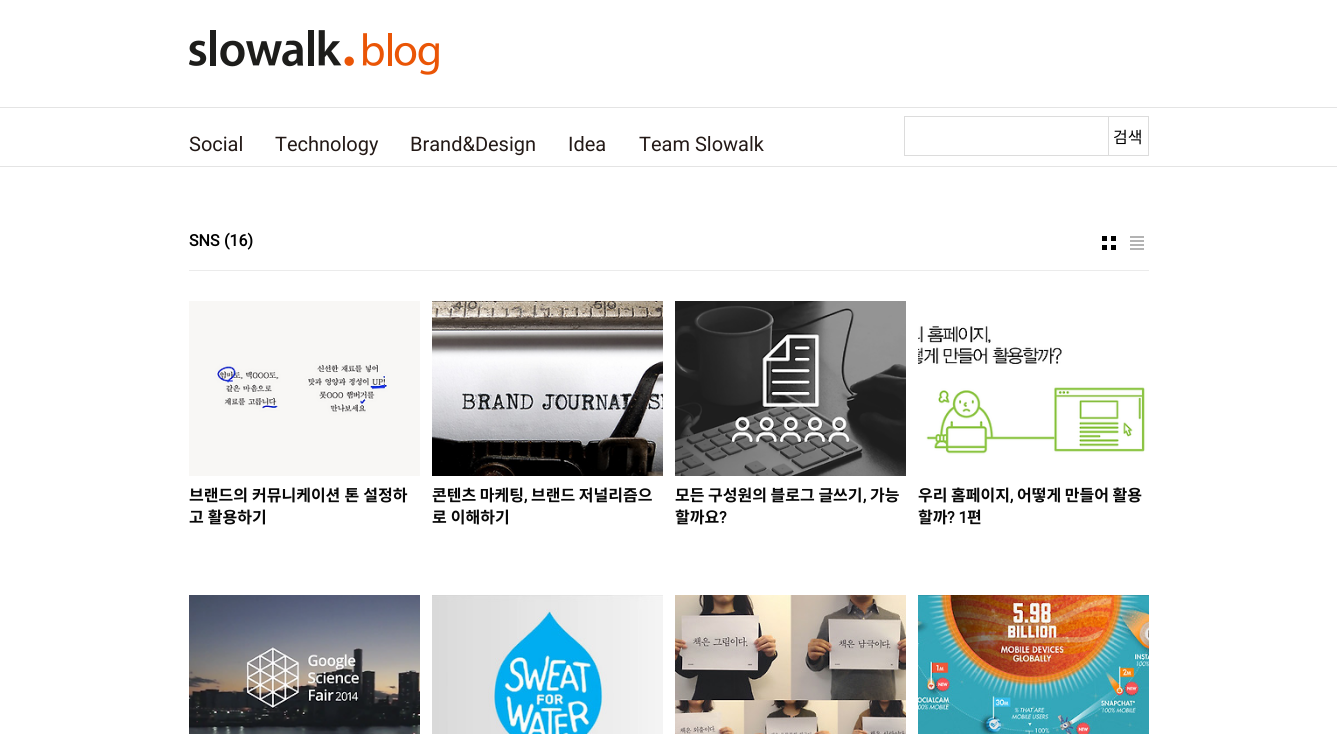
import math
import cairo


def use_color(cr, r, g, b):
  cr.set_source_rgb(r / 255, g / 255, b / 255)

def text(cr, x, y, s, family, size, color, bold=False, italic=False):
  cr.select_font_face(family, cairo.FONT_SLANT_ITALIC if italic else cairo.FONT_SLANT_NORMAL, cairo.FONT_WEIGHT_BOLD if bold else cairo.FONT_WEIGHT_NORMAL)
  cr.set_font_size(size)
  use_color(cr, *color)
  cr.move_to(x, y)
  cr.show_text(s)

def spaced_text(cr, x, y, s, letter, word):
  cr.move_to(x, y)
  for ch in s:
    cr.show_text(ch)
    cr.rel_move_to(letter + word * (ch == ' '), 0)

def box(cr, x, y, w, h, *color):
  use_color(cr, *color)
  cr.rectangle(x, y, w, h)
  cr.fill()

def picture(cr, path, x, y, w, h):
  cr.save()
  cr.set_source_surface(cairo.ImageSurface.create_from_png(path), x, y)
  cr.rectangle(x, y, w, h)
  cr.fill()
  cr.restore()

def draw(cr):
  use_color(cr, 255, 255, 255)
  cr.paint()
  picture(cr, "img_01.png", 189, 30, 250, 45)
  box(cr, 0, 107, 1337, 1, 228, 228, 228)
  box(cr, 0, 166, 1337, 1, 228, 228, 228)
  cr.rectangle(904.5, 116.5, 204, 39)
  use_color(cr, 220, 220, 220)
  cr.set_line_width(1)
  cr.stroke()
  box(cr, 1109, 116, 40, 1, 220, 220, 220)
  box(cr, 1148, 116, 1, 40, 220, 220, 220)
  box(cr, 1109, 155, 40, 1, 220, 220, 220)
  box(cr, 189, 270, 960, 1, 235, 235, 235)
  picture(cr, "img_02.png", 1102, 236, 14, 14)
  picture(cr, "img_03.png", 1130, 236, 14, 14)
  picture(cr, "img_04.png", 189, 301, 231, 175)
  picture(cr, "img_05.png", 432, 301, 231, 175)
  picture(cr, "img_06.png", 675, 301, 231, 175)
  picture(cr, "img_07.png", 918, 301, 231, 175)
  picture(cr, "img_08.png", 189, 595, 231, 139)
  picture(cr, "img_09.png", 432, 595, 231, 139)
  picture(cr, "img_10.png", 675, 595, 231, 139)
  picture(cr, "img_11.png", 918, 595, 231, 139)
  text(cr, 189, 151, "Social", "Roboto", 20, (35, 25, 22))
  text(cr, 275, 151, "Technology", "Roboto", 20, (35, 25, 22))
  text(cr, 410, 151, "Brand&Design", "Roboto", 20, (35, 25, 22))
  text(cr, 568, 151, "Idea", "Roboto", 20, (35, 25, 22))
  text(cr, 639, 151, "Team Slowalk", "Roboto", 20, (35, 25, 22))
  text(cr, 1113, 143, "검색", "Noto Sans KR", 16, (0, 0, 0))
  text(cr, 189, 246, "SNS", "Roboto", 16, (0, 0, 0), bold=True)
  text(cr, 224, 246, "(16)", "Roboto", 16, (0, 0, 0), bold=True)
  cr.select_font_face("Noto Sans KR", cairo.FONT_SLANT_NORMAL, cairo.FONT_WEIGHT_BOLD)
  use_color(cr, 8, 8, 8)
  spaced_text(cr, 189, 501, "브랜드의 커뮤니케이션 톤 설정하", 0, 0.5)
  spaced_text(cr, 189, 523, "고 활용하기", 0, 0.5)
  text(cr, 432, 501, "콘텐츠 마케팅", "Noto Sans KR", 16, (8, 8, 8), bold=True)
  text(cr, 524, 501, ",", "Roboto", 16, (8, 8, 8), bold=True)
  text(cr, 531, 501, "브랜드 저널리즘으", "Noto Sans KR", 16, (8, 8, 8), bold=True)
  spaced_text(cr, 432, 523, "로 이해하기", 0, 0.5)
  text(cr, 675, 501, "모든 구성원의 블로그 글쓰기", "Noto Sans KR", 16, (8, 8, 8), bold=True)
  text(cr, 863, 501, ",", "Roboto", 16, (8, 8, 8), bold=True)
  text(cr, 870, 501, "가능", "Noto Sans KR", 16, (8, 8, 8), bold=True)
  text(cr, 675, 523, "할까요", "Noto Sans KR", 16, (8, 8, 8), bold=True)
  text(cr, 719, 523, "?", "Roboto", 16, (8, 8, 8), bold=True)
  text(cr, 918, 501, "우리 홈페이지", "Noto Sans KR", 16, (8, 8, 8), bold=True)
  text(cr, 1010, 501, ",", "Roboto", 16, (8, 8, 8), bold=True)
  text(cr, 1017, 501, "어떻게 만들어 활용", "Noto Sans KR", 16, (8, 8, 8), bold=True)
  text(cr, 918, 523, "할까", "Noto Sans KR", 16, (8, 8, 8), bold=True)
  text(cr, 947, 523, "? 1", "Roboto", 16, (8, 8, 8), bold=True)
  text(cr, 967, 523, "편", "Noto Sans KR", 16, (8, 8, 8), bold=True)


surface = cairo.ImageSurface(cairo.FORMAT_RGB24, 1337, 734)
cr = cairo.Context(surface)
options = cairo.FontOptions()
options.set_hint_metrics(cairo.HINT_METRICS_OFF)
options.set_hint_style(cairo.HINT_STYLE_NONE)
cr.set_font_options(options)
cr.set_miter_limit(4)
draw(cr)
surface.write_to_png("out.png")
